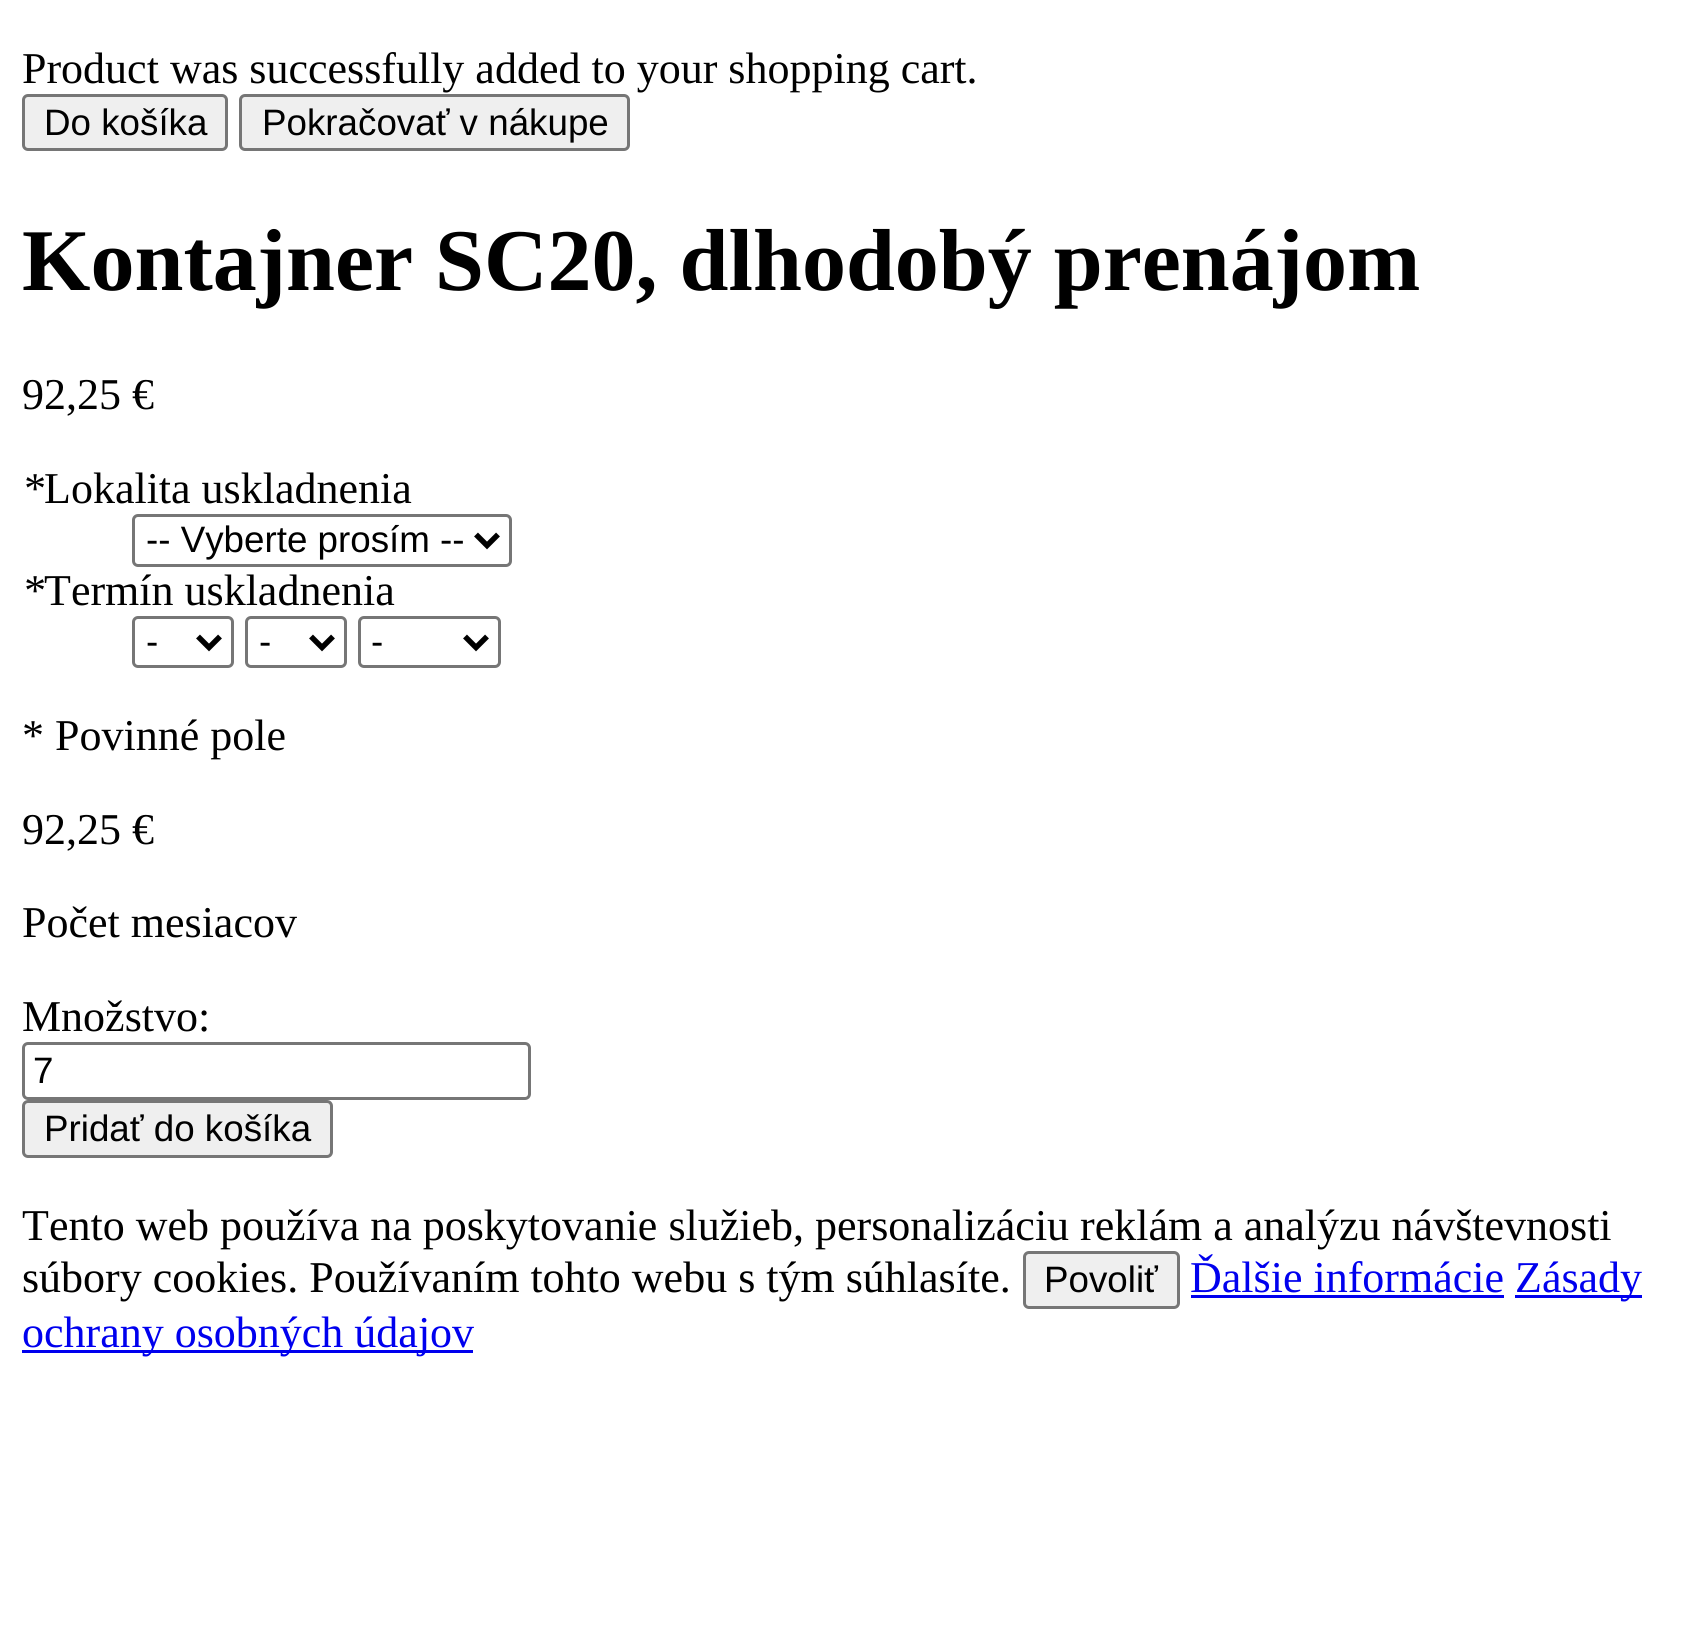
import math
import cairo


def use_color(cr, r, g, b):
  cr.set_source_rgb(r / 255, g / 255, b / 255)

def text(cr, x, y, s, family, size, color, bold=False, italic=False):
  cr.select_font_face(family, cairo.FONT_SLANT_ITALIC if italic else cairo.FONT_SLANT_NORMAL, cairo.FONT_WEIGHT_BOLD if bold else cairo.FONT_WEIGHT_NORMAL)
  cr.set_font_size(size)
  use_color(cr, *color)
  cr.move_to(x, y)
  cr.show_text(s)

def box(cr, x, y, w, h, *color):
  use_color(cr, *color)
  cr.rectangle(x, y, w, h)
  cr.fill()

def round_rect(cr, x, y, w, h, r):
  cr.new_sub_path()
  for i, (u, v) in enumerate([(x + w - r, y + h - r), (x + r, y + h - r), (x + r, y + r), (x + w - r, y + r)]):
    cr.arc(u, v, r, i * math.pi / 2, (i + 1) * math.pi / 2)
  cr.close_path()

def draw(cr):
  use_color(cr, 255, 255, 255)
  cr.paint()
  use_color(cr, 239, 239, 239)
  round_rect(cr, 23.5, 95.5, 203, 54, 4.5)
  cr.fill_preserve()
  use_color(cr, 118, 118, 118)
  cr.set_line_width(3)
  cr.stroke()
  use_color(cr, 239, 239, 239)
  round_rect(cr, 240.5, 95.5, 388, 54, 4.5)
  cr.fill_preserve()
  use_color(cr, 118, 118, 118)
  cr.stroke()
  round_rect(cr, 133.5, 515.5, 377, 50, 4.5)
  cr.stroke()
  cr.new_path()
  cr.move_to(476, 534.5)
  cr.line_to(487, 545.5)
  cr.line_to(498, 534.5)
  use_color(cr, 0, 0, 0)
  cr.set_line_width(5.5)
  cr.stroke()
  round_rect(cr, 133.5, 617.5, 99, 49, 4.5)
  use_color(cr, 118, 118, 118)
  cr.set_line_width(3)
  cr.stroke()
  cr.new_path()
  cr.move_to(198, 636.5)
  cr.line_to(209, 647.5)
  cr.line_to(220, 636.5)
  use_color(cr, 0, 0, 0)
  cr.set_line_width(5.5)
  cr.stroke()
  round_rect(cr, 246.5, 617.5, 99, 49, 4.5)
  use_color(cr, 118, 118, 118)
  cr.set_line_width(3)
  cr.stroke()
  cr.new_path()
  cr.move_to(311, 636.5)
  cr.line_to(322, 647.5)
  cr.line_to(333, 636.5)
  use_color(cr, 0, 0, 0)
  cr.set_line_width(5.5)
  cr.stroke()
  round_rect(cr, 359.5, 617.5, 140, 49, 4.5)
  use_color(cr, 118, 118, 118)
  cr.set_line_width(3)
  cr.stroke()
  cr.new_path()
  cr.move_to(465, 636.5)
  cr.line_to(476, 647.5)
  cr.line_to(487, 636.5)
  use_color(cr, 0, 0, 0)
  cr.set_line_width(5.5)
  cr.stroke()
  round_rect(cr, 23.5, 1043.5, 506, 55, 4.5)
  use_color(cr, 118, 118, 118)
  cr.set_line_width(3)
  cr.stroke()
  use_color(cr, 239, 239, 239)
  round_rect(cr, 23.5, 1101.5, 308, 55, 4.5)
  cr.fill_preserve()
  use_color(cr, 118, 118, 118)
  cr.stroke()
  use_color(cr, 239, 239, 239)
  round_rect(cr, 1024.5, 1252.5, 154, 55, 4.5)
  cr.fill_preserve()
  use_color(cr, 118, 118, 118)
  cr.stroke()
  box(cr, 1191, 1295, 313, 3, 0, 0, 238)
  box(cr, 1515, 1295, 127, 3, 0, 0, 238)
  box(cr, 22, 1350, 451, 3, 0, 0, 238)
  text(cr, 22, 83, "Product was successfully added to your shopping cart.", "Liberation Serif", 44, (0, 0, 0))
  text(cr, 44, 135, "Do košíka", "Liberation Sans", 36.75, (0, 0, 0))
  text(cr, 262, 135, "Pokračovať v nákupe", "Liberation Sans", 36.75, (0, 0, 0))
  text(cr, 22, 290, "Kontajner SC20, dlhodobý prenájom", "Liberation Serif", 88, (0, 0, 0), bold=True)
  text(cr, 22, 409, "92,25 €", "Liberation Serif", 44, (0, 0, 0))
  text(cr, 22, 503, "*", "Liberation Serif", 44, (0, 0, 0), italic=True)
  text(cr, 44, 503, "Lokalita uskladnenia", "Liberation Serif", 44, (0, 0, 0))
  text(cr, 146, 552, "-- Vyberte prosím --", "Liberation Sans", 36.75, (0, 0, 0))
  text(cr, 22, 605, "*", "Liberation Serif", 44, (0, 0, 0), italic=True)
  text(cr, 44, 605, "Termín uskladnenia", "Liberation Serif", 44, (0, 0, 0))
  text(cr, 146, 654, "-", "Liberation Sans", 36.75, (0, 0, 0))
  text(cr, 259, 654, "-", "Liberation Sans", 36.75, (0, 0, 0))
  text(cr, 371, 654, "-", "Liberation Sans", 36.75, (0, 0, 0))
  text(cr, 22, 750, "* Povinné pole", "Liberation Serif", 44, (0, 0, 0))
  text(cr, 22, 844, "92,25 €", "Liberation Serif", 44, (0, 0, 0))
  text(cr, 22, 937, "Počet mesiacov", "Liberation Serif", 44, (0, 0, 0))
  text(cr, 22, 1031, "Množstvo:", "Liberation Serif", 44, (0, 0, 0))
  text(cr, 33, 1083, "7", "Liberation Sans", 36.75, (0, 0, 0))
  text(cr, 44, 1141, "Pridať do košíka", "Liberation Sans", 36.75, (0, 0, 0))
  text(cr, 22, 1240, "Tento web používa na poskytovanie služieb, personalizáciu reklám a analýzu návštevnosti", "Liberation Serif", 44, (0, 0, 0))
  text(cr, 22, 1292, "súbory cookies. Používaním tohto webu s tým súhlasíte.", "Liberation Serif", 44, (0, 0, 0))
  text(cr, 1044, 1292, "Povoliť", "Liberation Sans", 36.75, (0, 0, 0))
  text(cr, 1190, 1292, "Ďalšie informácie", "Liberation Serif", 44, (0, 0, 238))
  text(cr, 1515, 1292, "Zásady", "Liberation Serif", 44, (0, 0, 238))
  text(cr, 22, 1347, "ochrany osobných údajov", "Liberation Serif", 44, (0, 0, 238))


surface = cairo.ImageSurface(cairo.FORMAT_RGB24, 1687, 1627)
cr = cairo.Context(surface)
options = cairo.FontOptions()
options.set_hint_metrics(cairo.HINT_METRICS_OFF)
options.set_hint_style(cairo.HINT_STYLE_NONE)
cr.set_font_options(options)
cr.set_miter_limit(4)
draw(cr)
surface.write_to_png("out.png")
